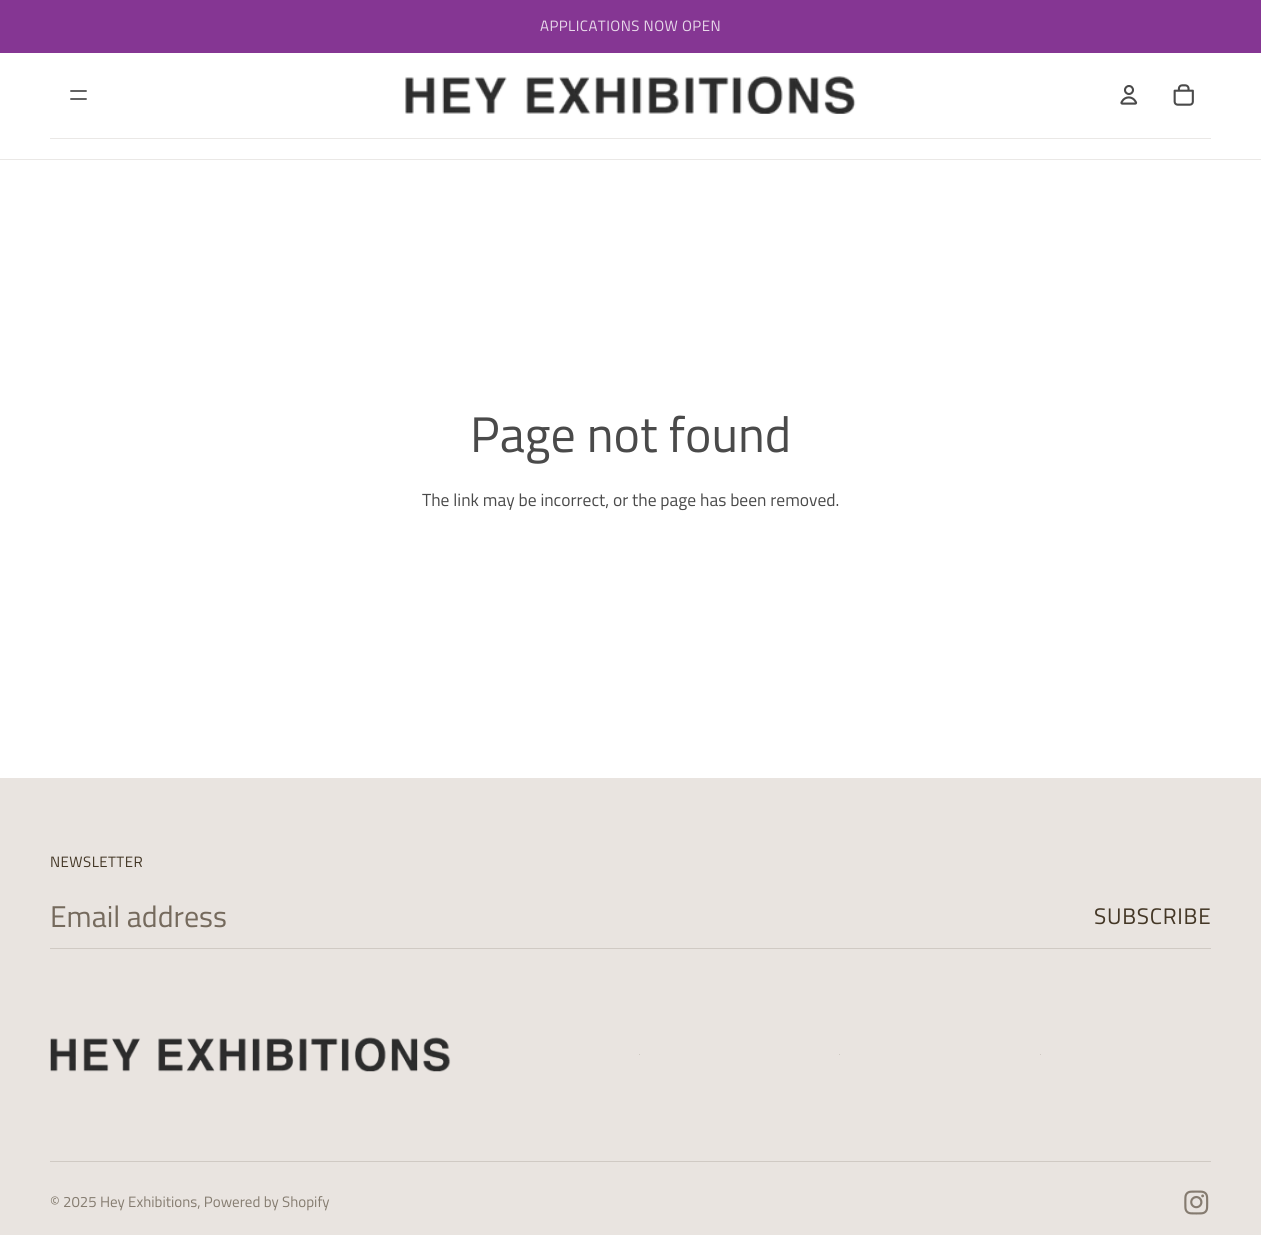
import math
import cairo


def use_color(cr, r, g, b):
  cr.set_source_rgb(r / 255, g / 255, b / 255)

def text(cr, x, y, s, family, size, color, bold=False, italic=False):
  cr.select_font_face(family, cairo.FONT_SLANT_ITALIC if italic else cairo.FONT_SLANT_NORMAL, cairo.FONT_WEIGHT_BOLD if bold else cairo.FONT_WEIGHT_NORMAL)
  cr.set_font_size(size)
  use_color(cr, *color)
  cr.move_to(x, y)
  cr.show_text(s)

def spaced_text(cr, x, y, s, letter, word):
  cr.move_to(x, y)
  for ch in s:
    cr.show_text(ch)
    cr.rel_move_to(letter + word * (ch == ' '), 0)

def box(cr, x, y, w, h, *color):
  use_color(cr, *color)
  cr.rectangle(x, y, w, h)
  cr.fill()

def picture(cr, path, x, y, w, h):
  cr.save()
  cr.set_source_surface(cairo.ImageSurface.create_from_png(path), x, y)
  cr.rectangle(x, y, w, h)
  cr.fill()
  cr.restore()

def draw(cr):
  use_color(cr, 255, 255, 255)
  cr.paint()
  box(cr, 0, 0, 1261, 53, 133, 54, 147)
  box(cr, 50, 138, 1161, 1, 234, 232, 230)
  cr.new_path()
  cr.move_to(71, 91)
  cr.line_to(86, 91)
  cr.move_to(71, 99)
  cr.line_to(86, 99)
  use_color(cr, 74, 74, 74)
  cr.set_line_width(1.8)
  cr.set_line_cap(cairo.LINE_CAP_ROUND)
  cr.stroke()
  picture(cr, "img_01.png", 405, 76, 451, 38)
  picture(cr, "img_02.png", 1120, 85, 18, 20)
  picture(cr, "img_03.png", 1173, 84, 21, 22)
  box(cr, 0, 159, 1261, 1, 234, 232, 230)
  box(cr, 0, 778, 1261, 457, 233, 228, 224)
  box(cr, 50, 948, 1161, 1, 208, 202, 196)
  picture(cr, "img_04.png", 50, 1037, 401, 35)
  cr.new_path()
  cr.move_to(640, 1054)
  cr.line_to(640, 1055)
  cr.line_to(639, 1054)
  cr.close_path()
  cr.fill()
  use_color(cr, 197, 191, 184)
  cr.new_path()
  cr.move_to(640, 1055)
  cr.line_to(639, 1055)
  cr.line_to(639, 1054)
  cr.close_path()
  cr.fill()
  use_color(cr, 208, 202, 196)
  cr.new_path()
  cr.move_to(840, 1054)
  cr.line_to(840, 1055)
  cr.line_to(839, 1054)
  cr.close_path()
  cr.fill()
  use_color(cr, 197, 191, 184)
  cr.new_path()
  cr.move_to(840, 1055)
  cr.line_to(839, 1055)
  cr.line_to(839, 1054)
  cr.close_path()
  cr.fill()
  use_color(cr, 208, 202, 196)
  cr.new_path()
  cr.move_to(1041, 1054)
  cr.line_to(1041, 1055)
  cr.line_to(1040, 1054)
  cr.close_path()
  cr.fill()
  use_color(cr, 197, 191, 184)
  cr.new_path()
  cr.move_to(1041, 1055)
  cr.line_to(1040, 1055)
  cr.line_to(1040, 1054)
  cr.close_path()
  cr.fill()
  box(cr, 50, 1161, 1161, 1, 208, 202, 196)
  picture(cr, "img_05.png", 1184, 1190, 25, 25)
  cr.select_font_face("Titillium Web")
  cr.set_font_size(15)
  use_color(cr, 232, 217, 234)
  spaced_text(cr, 540, 31, "APPLICATIONS NOW OPEN", 0.45, 0)
  text(cr, 470, 452, "Page not found", "Titillium Web", 50, (74, 74, 74))
  text(cr, 422, 506, "The link may be incorrect, or the page has been removed.", "Titillium Web", 17.5, (74, 74, 74))
  cr.set_font_size(15)
  use_color(cr, 67, 54, 37)
  spaced_text(cr, 50, 867, "NEWSLETTER", 0.45, 0)
  text(cr, 50, 927, "Email address", "Titillium Web", 30, (117, 106, 93))
  cr.set_font_size(22.5)
  use_color(cr, 67, 54, 37)
  spaced_text(cr, 1094, 924, "SUBSCRIBE", 0.75, 0)
  text(cr, 50, 1207, "© 2025 Hey Exhibitions, Powered by Shopify", "Titillium Web", 15, (133, 124, 112))


surface = cairo.ImageSurface(cairo.FORMAT_RGB24, 1261, 1235)
cr = cairo.Context(surface)
options = cairo.FontOptions()
options.set_hint_metrics(cairo.HINT_METRICS_OFF)
options.set_hint_style(cairo.HINT_STYLE_NONE)
cr.set_font_options(options)
cr.set_miter_limit(4)
draw(cr)
surface.write_to_png("out.png")
